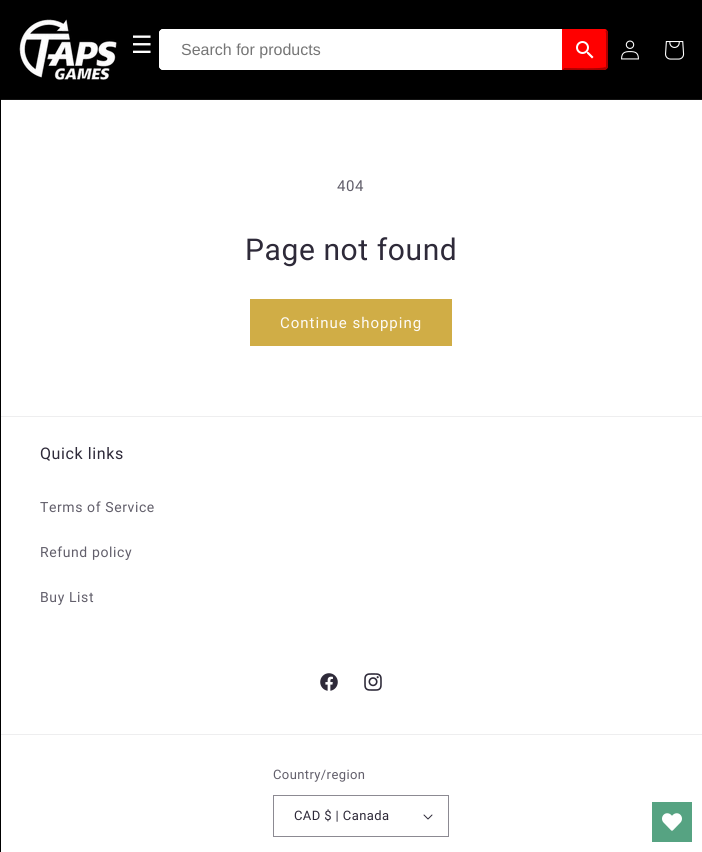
import math
import cairo


def use_color(cr, r, g, b):
  cr.set_source_rgb(r / 255, g / 255, b / 255)

def text(cr, x, y, s, family, size, color, bold=False, italic=False):
  cr.select_font_face(family, cairo.FONT_SLANT_ITALIC if italic else cairo.FONT_SLANT_NORMAL, cairo.FONT_WEIGHT_BOLD if bold else cairo.FONT_WEIGHT_NORMAL)
  cr.set_font_size(size)
  use_color(cr, *color)
  cr.move_to(x, y)
  cr.show_text(s)

def spaced_text(cr, x, y, s, letter, word):
  cr.move_to(x, y)
  for ch in s:
    cr.show_text(ch)
    cr.rel_move_to(letter + word * (ch == ' '), 0)

def box(cr, x, y, w, h, *color):
  use_color(cr, *color)
  cr.rectangle(x, y, w, h)
  cr.fill()

def picture(cr, path, x, y, w, h):
  cr.save()
  cr.set_source_surface(cairo.ImageSurface.create_from_png(path), x, y)
  cr.rectangle(x, y, w, h)
  cr.fill()
  cr.restore()

def draw(cr):
  use_color(cr, 255, 255, 255)
  cr.paint()
  box(cr, 1, 0, 701, 99, 0, 0, 0)
  box(cr, 0, 99, 702, 1, 20, 20, 20)
  picture(cr, "img_01.png", 19, 19, 98, 61)
  box(cr, 0, 416, 702, 1, 238, 238, 239)
  box(cr, 0, 734, 702, 1, 238, 238, 239)
  box(cr, 0, 0, 1, 852, 0, 0, 0)
  use_color(cr, 255, 255, 255)
  cr.new_path()
  cr.move_to(163, 29)
  cr.line_to(562, 29)
  cr.line_to(562, 70)
  cr.line_to(163, 70)
  cr.curve_to(161, 70, 159, 68, 159, 66)
  cr.line_to(159, 33)
  cr.curve_to(159, 31, 161, 29, 163, 29)
  cr.close_path()
  cr.fill()
  cr.set_fill_rule(cairo.FILL_RULE_EVEN_ODD)
  cr.new_path()
  cr.move_to(163, 29)
  cr.line_to(562, 29)
  cr.line_to(562, 70)
  cr.line_to(163, 70)
  cr.curve_to(161, 70, 159, 68, 159, 66)
  cr.line_to(159, 33)
  cr.curve_to(159, 31, 161, 29, 163, 29)
  cr.close_path()
  cr.move_to(163, 31)
  cr.line_to(562, 31)
  cr.line_to(562, 68)
  cr.line_to(163, 68)
  cr.curve_to(162, 68, 161, 67, 161, 66)
  cr.line_to(161, 33)
  cr.curve_to(161, 32, 162, 31, 163, 31)
  cr.close_path()
  cr.fill()
  use_color(cr, 255, 0, 0)
  cr.new_path()
  cr.move_to(562, 29)
  cr.line_to(604, 29)
  cr.curve_to(606, 29, 608, 31, 608, 33)
  cr.line_to(608, 66)
  cr.curve_to(608, 68, 606, 70, 604, 70)
  cr.line_to(562, 70)
  cr.close_path()
  cr.fill()
  cr.set_fill_rule(cairo.FILL_RULE_WINDING)
  cr.new_path()
  cr.move_to(562, 29)
  cr.line_to(564, 31)
  cr.curve_to(569, 31, 604, 30, 605, 32)
  cr.line_to(607, 30)
  cr.line_to(604, 29)
  cr.close_path()
  cr.fill()
  use_color(cr, 170, 0, 0)
  cr.new_path()
  cr.move_to(608, 66)
  cr.line_to(608, 33)
  cr.curve_to(608, 32, 607.5, 31, 607, 30)
  cr.line_to(605.5, 31.5)
  cr.line_to(606, 33)
  cr.line_to(606, 66)
  cr.line_to(605.5, 67.5)
  cr.line_to(607, 69)
  cr.curve_to(607.5, 68, 608, 67, 608, 66)
  cr.close_path()
  cr.fill()
  cr.new_path()
  cr.move_to(604, 70)
  cr.line_to(607, 69)
  cr.line_to(605, 67)
  cr.curve_to(604, 69, 569, 68, 564, 68)
  cr.line_to(562, 70)
  cr.close_path()
  cr.fill()
  use_color(cr, 255, 0, 0)
  cr.new_path()
  cr.move_to(562, 29)
  cr.line_to(562, 70)
  cr.line_to(564, 68)
  cr.line_to(564, 31)
  cr.close_path()
  cr.fill()
  picture(cr, "img_02.png", 576, 41, 18, 18)
  picture(cr, "img_03.png", 621, 40, 18, 20)
  picture(cr, "img_04.png", 665, 41, 20, 19)
  box(cr, 250, 299, 202, 47, 208, 173, 70)
  picture(cr, "img_05.png", 320, 673, 18, 18)
  picture(cr, "img_06.png", 364, 673, 18, 18)
  picture(cr, "img_07.png", 423, 814, 10, 6)
  cr.rectangle(273.5, 795.5, 175, 41)
  use_color(cr, 140, 138, 146)
  cr.set_line_width(1)
  cr.stroke()
  box(cr, 652, 802, 40, 40, 86, 163, 130)
  picture(cr, "img_08.png", 662, 813, 20, 18)
  text(cr, 131, 53, "☰", "DejaVu Sans", 24, (255, 255, 255))
  text(cr, 181, 55, "Search for products", "Liberation Sans", 16, (117, 117, 117))
  cr.select_font_face("Roboto")
  cr.set_font_size(15)
  use_color(cr, 98, 95, 107)
  spaced_text(cr, 337, 191, "404", 0.6, 0)
  cr.set_font_size(30)
  use_color(cr, 46, 42, 57)
  spaced_text(cr, 245, 260, "Page not found", 0.6, 0)
  cr.set_font_size(15)
  use_color(cr, 253, 251, 247)
  spaced_text(cr, 280, 328, "Continue shopping", 1, 0)
  cr.set_font_size(16)
  use_color(cr, 46, 42, 57)
  spaced_text(cr, 40, 459, "Quick links", 0.6, 0)
  cr.set_font_size(14)
  use_color(cr, 98, 95, 107)
  spaced_text(cr, 40, 512, "Terms of Service", 0.6, 0)
  spaced_text(cr, 40, 557, "Refund policy", 0.6, 0)
  spaced_text(cr, 40, 602, "Buy List", 0.6, 0)
  cr.set_font_size(13)
  spaced_text(cr, 273, 779, "Country/region", 0.4, 0)
  use_color(cr, 46, 42, 57)
  spaced_text(cr, 294, 820, "CAD $ | Canada", 0.4, 0)


surface = cairo.ImageSurface(cairo.FORMAT_RGB24, 702, 852)
cr = cairo.Context(surface)
options = cairo.FontOptions()
options.set_hint_metrics(cairo.HINT_METRICS_OFF)
options.set_hint_style(cairo.HINT_STYLE_NONE)
cr.set_font_options(options)
cr.set_miter_limit(4)
draw(cr)
surface.write_to_png("out.png")
